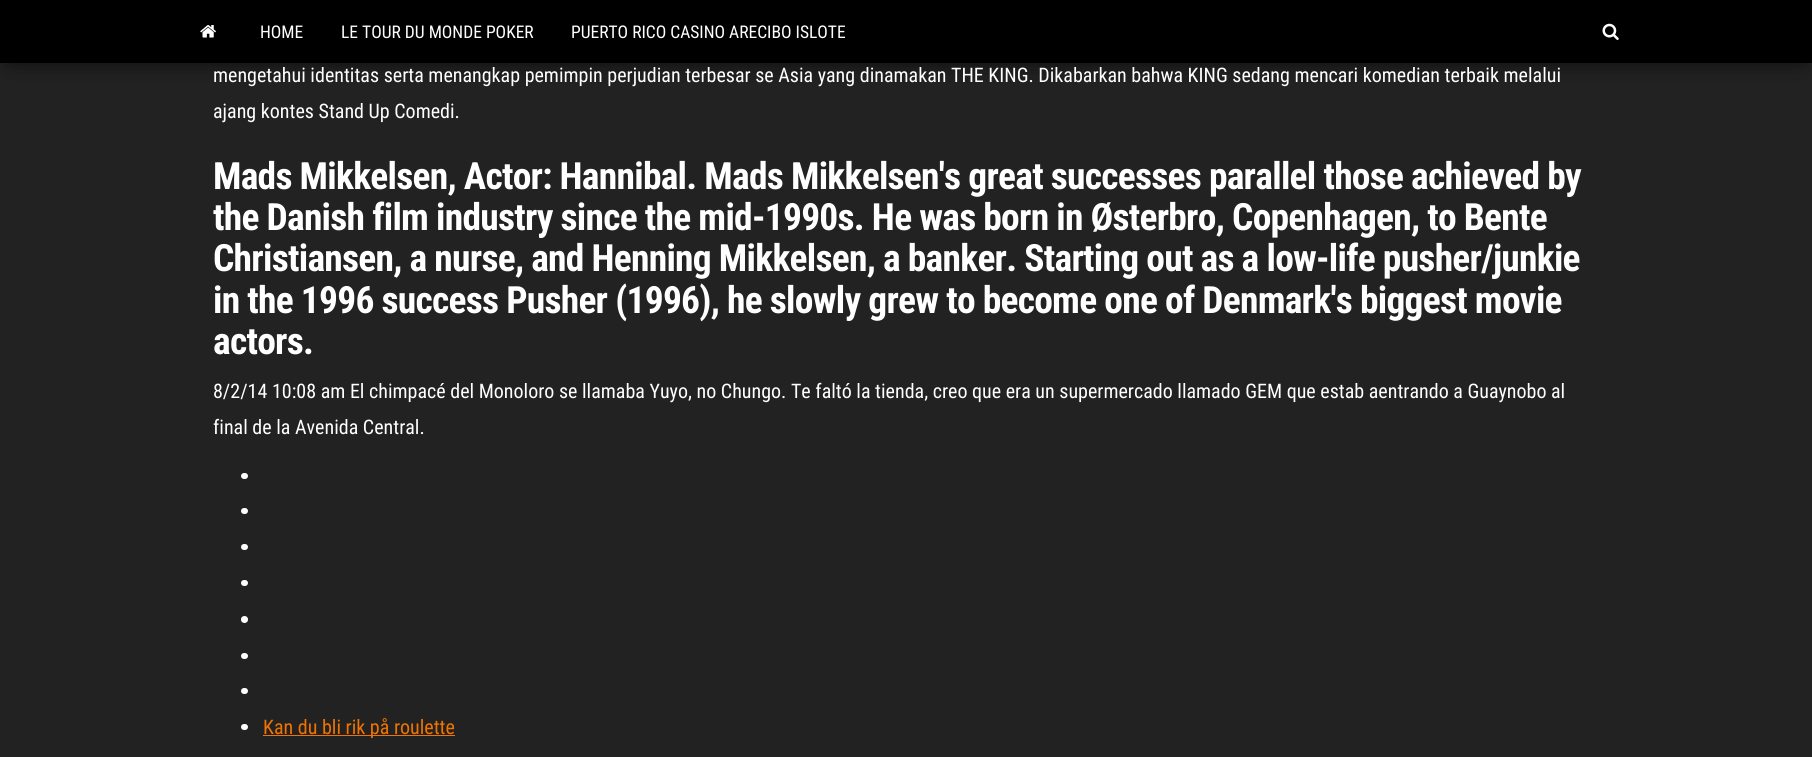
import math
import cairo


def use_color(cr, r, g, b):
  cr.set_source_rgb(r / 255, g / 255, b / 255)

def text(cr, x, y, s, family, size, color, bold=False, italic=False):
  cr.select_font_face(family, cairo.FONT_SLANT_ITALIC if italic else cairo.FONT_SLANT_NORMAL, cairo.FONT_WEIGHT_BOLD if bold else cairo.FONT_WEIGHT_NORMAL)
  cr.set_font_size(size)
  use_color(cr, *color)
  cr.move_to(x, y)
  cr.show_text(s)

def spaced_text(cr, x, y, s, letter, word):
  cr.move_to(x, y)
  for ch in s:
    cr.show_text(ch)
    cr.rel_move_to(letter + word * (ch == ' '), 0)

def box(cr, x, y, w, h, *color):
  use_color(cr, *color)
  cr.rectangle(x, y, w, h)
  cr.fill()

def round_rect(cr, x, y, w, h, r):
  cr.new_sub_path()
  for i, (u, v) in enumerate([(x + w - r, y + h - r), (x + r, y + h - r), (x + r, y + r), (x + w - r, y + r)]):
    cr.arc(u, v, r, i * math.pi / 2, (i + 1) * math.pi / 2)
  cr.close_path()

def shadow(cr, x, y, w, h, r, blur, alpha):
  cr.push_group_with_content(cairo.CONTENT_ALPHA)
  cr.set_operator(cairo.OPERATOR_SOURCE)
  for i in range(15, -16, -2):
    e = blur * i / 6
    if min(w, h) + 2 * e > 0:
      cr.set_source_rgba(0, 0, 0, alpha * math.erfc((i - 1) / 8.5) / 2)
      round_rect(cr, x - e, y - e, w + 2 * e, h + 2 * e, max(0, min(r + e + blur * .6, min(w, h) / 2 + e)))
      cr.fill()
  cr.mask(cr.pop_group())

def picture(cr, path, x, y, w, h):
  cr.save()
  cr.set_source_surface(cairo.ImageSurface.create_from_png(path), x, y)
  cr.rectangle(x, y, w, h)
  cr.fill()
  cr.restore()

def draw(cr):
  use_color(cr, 34, 34, 34)
  cr.paint()
  use_color(cr, 0, 0, 0)
  shadow(cr, 6, 16, 1800, 50, 0, 6, 0.2)
  shadow(cr, 0, 4, 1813, 62, 0, 12.5, 0.12)
  shadow(cr, 15, 28, 1783, 32, 0, 12.5, 0.42)
  box(cr, 0, 0, 1812, 63, 0, 0, 0)
  picture(cr, "img_01.png", 200, 25, 16, 13)
  picture(cr, "img_02.png", 1602, 23, 17, 17)
  use_color(cr, 255, 255, 255)
  round_rect(cr, 241, 473, 7, 6, 3)
  cr.fill()
  round_rect(cr, 241, 508, 7, 6, 3)
  cr.fill()
  round_rect(cr, 241, 544, 7, 6, 3)
  cr.fill()
  round_rect(cr, 241, 580, 7, 6, 3)
  cr.fill()
  cr.arc(244.5, 619.5, 3.5, 0, 2 * math.pi)
  cr.fill()
  round_rect(cr, 241, 653, 7, 6, 3)
  cr.fill()
  round_rect(cr, 241, 688, 7, 6, 3)
  cr.fill()
  round_rect(cr, 241, 724, 7, 6, 3)
  cr.fill()
  box(cr, 263, 735, 192, 1, 242, 115, 0)
  text(cr, 260, 38, "HOME", "Roboto Condensed", 17.5, (255, 255, 255))
  text(cr, 341, 38, "LE TOUR DU MONDE POKER", "Roboto Condensed", 17.5, (255, 255, 255))
  text(cr, 571, 38, "PUERTO RICO CASINO ARECIBO ISLOTE", "Roboto Condensed", 17.5, (255, 255, 255))
  text(cr, 213, 82, "mengetahui identitas serta menangkap pemimpin perjudian terbesar se Asia yang dinamakan THE KING. Dikabarkan bahwa KING sedang mencari komedian terbaik melalui", "Roboto Condensed", 20, (255, 255, 255))
  text(cr, 213, 118, "ajang kontes Stand Up Comedi.", "Roboto Condensed", 20, (255, 255, 255))
  cr.select_font_face("Roboto Condensed", cairo.FONT_SLANT_NORMAL, cairo.FONT_WEIGHT_BOLD)
  cr.set_font_size(37.5)
  spaced_text(cr, 213, 189, "Mads Mikkelsen, Actor: Hannibal. Mads Mikkelsen's great successes parallel those achieved by", -0.75, 0)
  spaced_text(cr, 213, 230, "the Danish film industry since the mid-1990s. He was born in Østerbro, Copenhagen, to Bente", -0.75, 0)
  spaced_text(cr, 213, 271, "Christiansen, a nurse, and Henning Mikkelsen, a banker. Starting out as a low-life pusher/junkie", -0.75, 0)
  spaced_text(cr, 213, 313, "in the 1996 success Pusher (1996), he slowly grew to become one of Denmark's biggest movie", -0.75, 0)
  spaced_text(cr, 213, 354, "actors.", -0.75, 0)
  text(cr, 213, 398, "8/2/14 10:08 am El chimpacé del Monoloro se llamaba Yuyo, no Chungo. Te faltó la tienda, creo que era un supermercado llamado GEM que estab aentrando a Guaynobo al", "Roboto Condensed", 20, (255, 255, 255))
  text(cr, 213, 434, "final de la Avenida Central.", "Roboto Condensed", 20, (255, 255, 255))
  text(cr, 263, 734, "Kan du bli rik på roulette", "Roboto Condensed", 20, (242, 115, 0))


surface = cairo.ImageSurface(cairo.FORMAT_RGB24, 1812, 757)
cr = cairo.Context(surface)
options = cairo.FontOptions()
options.set_hint_metrics(cairo.HINT_METRICS_OFF)
options.set_hint_style(cairo.HINT_STYLE_NONE)
cr.set_font_options(options)
cr.set_miter_limit(4)
draw(cr)
surface.write_to_png("out.png")
